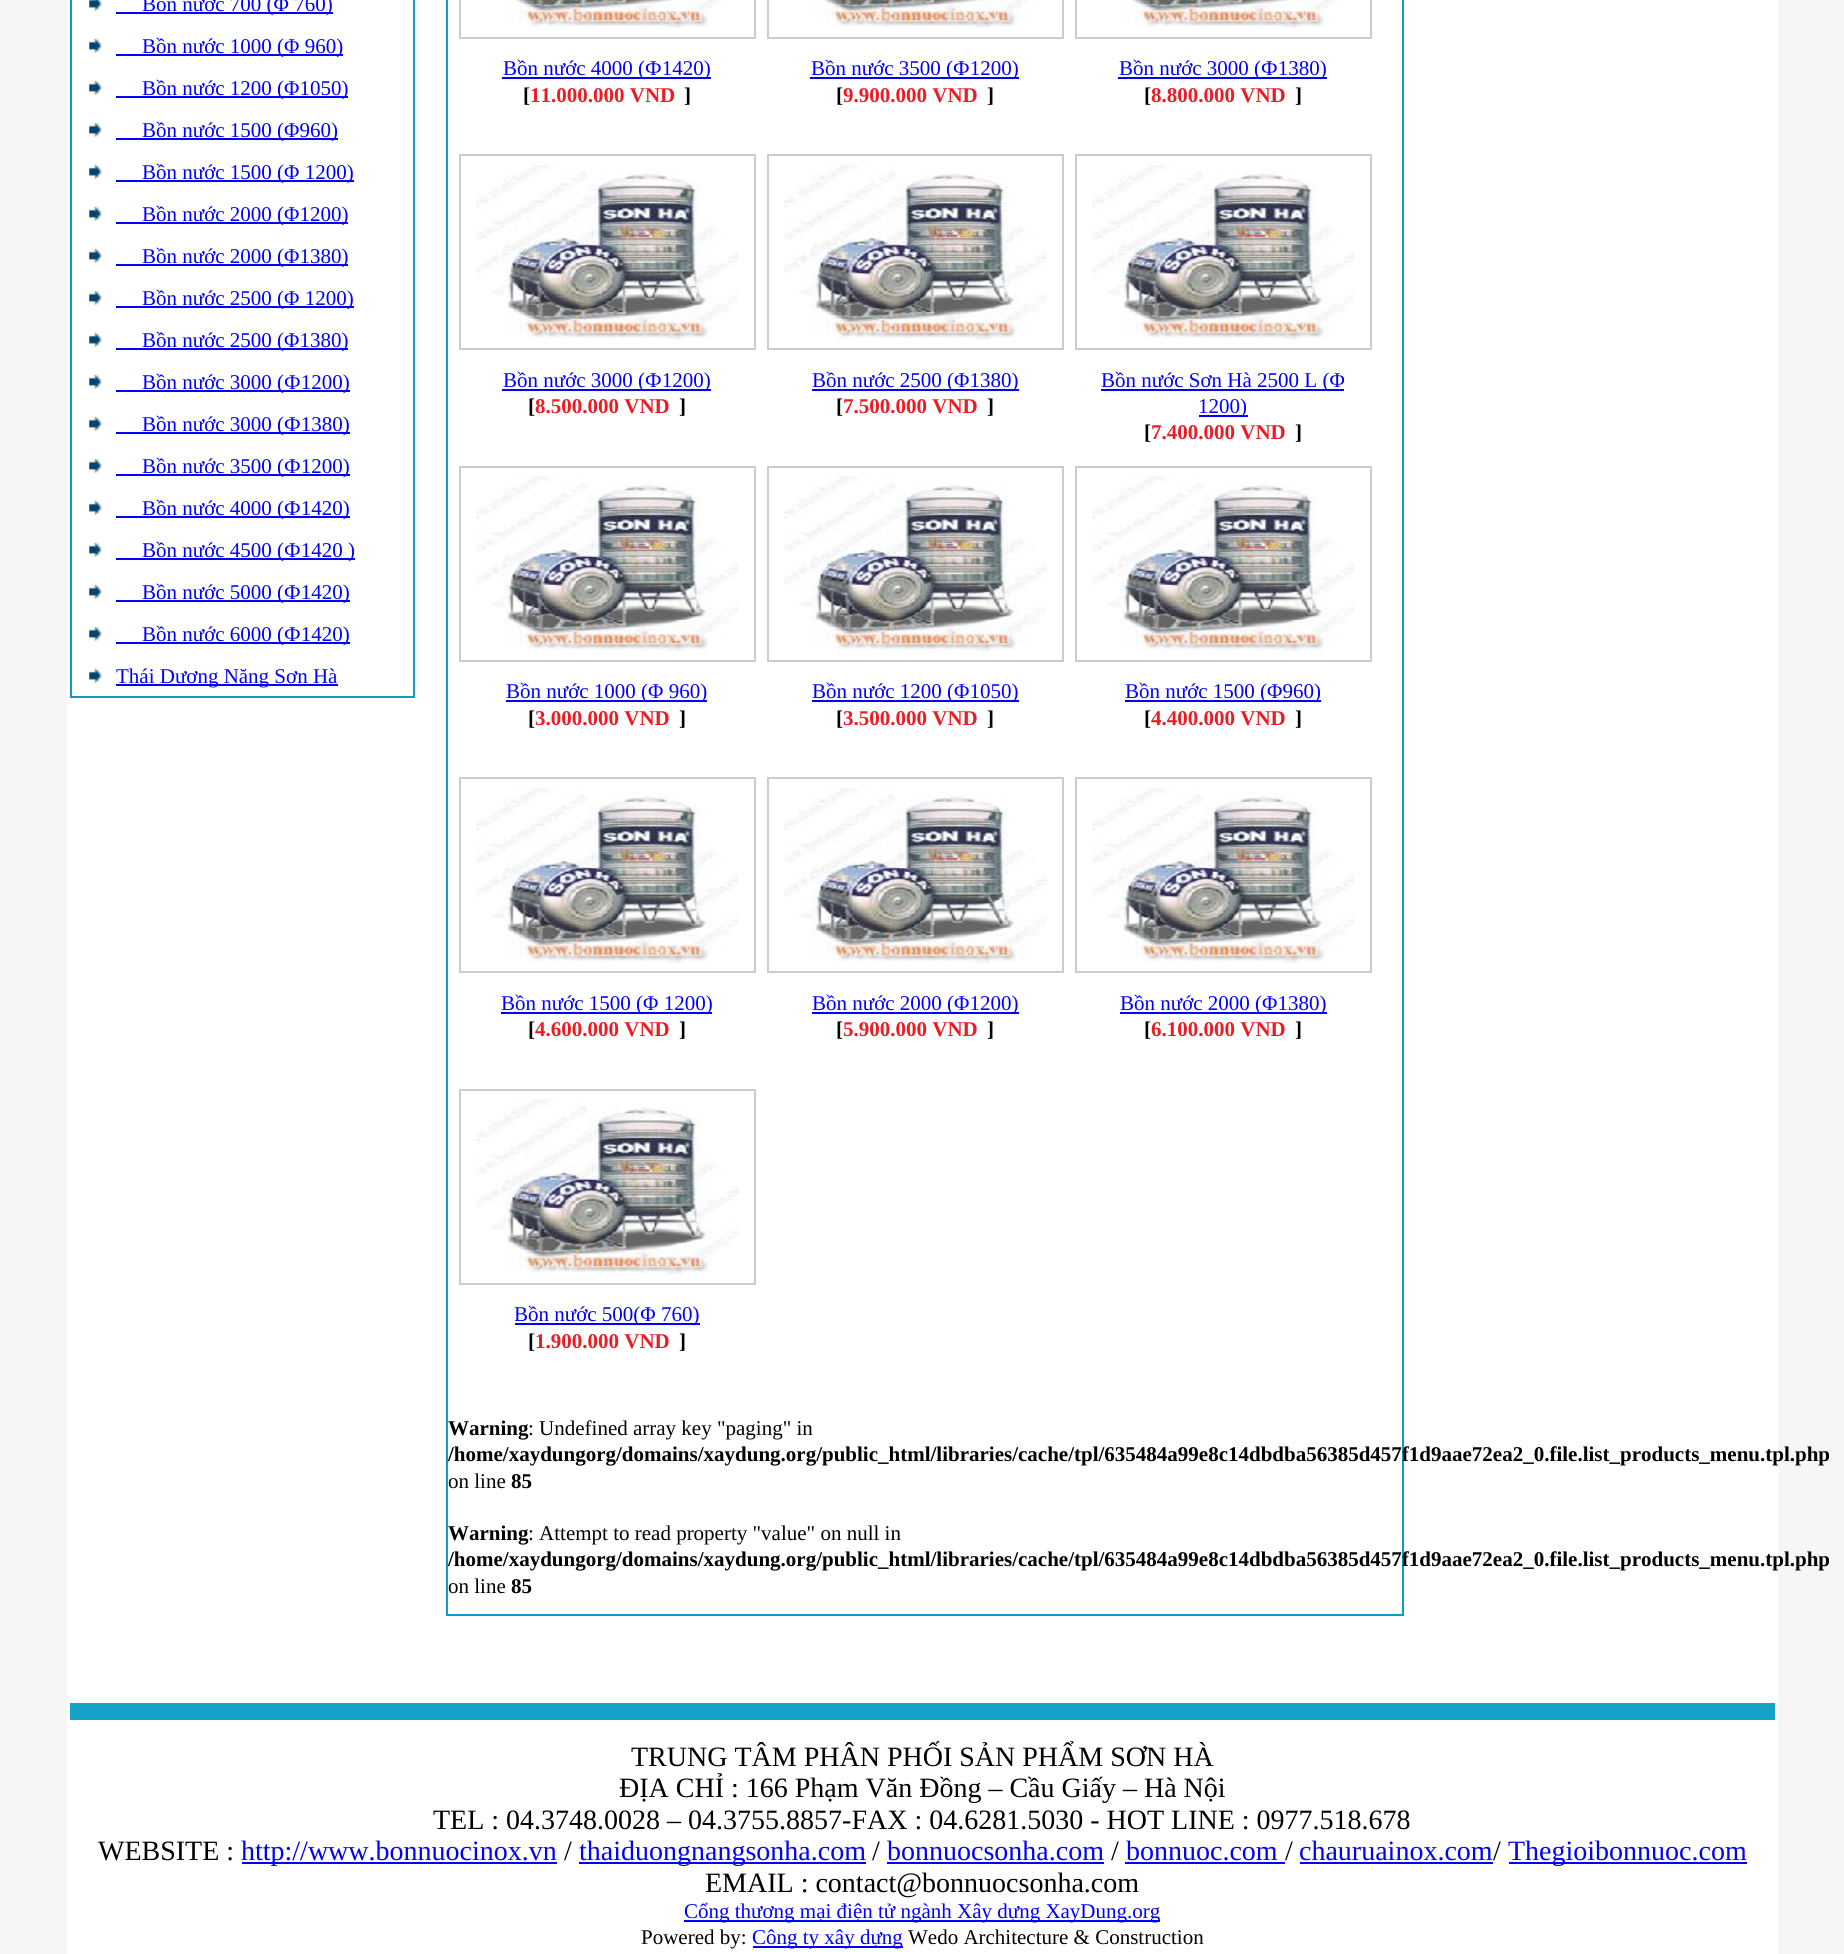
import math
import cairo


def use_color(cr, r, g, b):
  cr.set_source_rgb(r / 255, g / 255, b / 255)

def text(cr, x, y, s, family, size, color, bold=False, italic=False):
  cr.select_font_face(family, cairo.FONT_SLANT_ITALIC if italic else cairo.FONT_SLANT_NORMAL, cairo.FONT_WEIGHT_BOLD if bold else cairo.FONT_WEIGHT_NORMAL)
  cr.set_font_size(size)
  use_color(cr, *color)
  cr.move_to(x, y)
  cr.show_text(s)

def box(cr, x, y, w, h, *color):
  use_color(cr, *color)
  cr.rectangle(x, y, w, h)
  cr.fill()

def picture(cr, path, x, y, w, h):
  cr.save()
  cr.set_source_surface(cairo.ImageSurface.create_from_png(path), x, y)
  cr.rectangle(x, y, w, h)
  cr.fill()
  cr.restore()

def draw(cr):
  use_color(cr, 246, 246, 246)
  cr.paint()
  box(cr, 67, 0, 1711, 1954, 255, 255, 255)
  cr.rectangle(71, -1, 343, 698)
  use_color(cr, 16, 155, 197)
  cr.stroke()
  picture(cr, "img_01.png", 89, 0, 13, 11)
  box(cr, 116, 12, 217, 2, 0, 0, 255)
  picture(cr, "img_02.png", 89, 38, 13, 15)
  box(cr, 116, 54, 227, 2, 0, 0, 255)
  picture(cr, "img_02.png", 89, 80, 13, 15)
  box(cr, 116, 96, 232, 2, 0, 0, 255)
  picture(cr, "img_02.png", 89, 122, 13, 15)
  box(cr, 116, 138, 222, 2, 0, 0, 255)
  picture(cr, "img_02.png", 89, 164, 13, 15)
  box(cr, 116, 180, 238, 2, 0, 0, 255)
  picture(cr, "img_02.png", 89, 206, 13, 15)
  box(cr, 116, 222, 232, 2, 0, 0, 255)
  picture(cr, "img_02.png", 89, 248, 13, 15)
  box(cr, 116, 264, 232, 2, 0, 0, 255)
  picture(cr, "img_02.png", 89, 290, 13, 15)
  box(cr, 116, 306, 238, 2, 0, 0, 255)
  picture(cr, "img_02.png", 89, 332, 13, 15)
  box(cr, 116, 348, 232, 2, 0, 0, 255)
  picture(cr, "img_02.png", 89, 374, 13, 15)
  box(cr, 116, 390, 234, 2, 0, 0, 255)
  picture(cr, "img_02.png", 89, 416, 13, 15)
  box(cr, 116, 432, 234, 2, 0, 0, 255)
  picture(cr, "img_02.png", 89, 458, 13, 15)
  box(cr, 116, 474, 234, 2, 0, 0, 255)
  picture(cr, "img_02.png", 89, 500, 13, 15)
  box(cr, 116, 516, 234, 2, 0, 0, 255)
  picture(cr, "img_02.png", 89, 542, 13, 15)
  box(cr, 116, 558, 239, 2, 0, 0, 255)
  picture(cr, "img_02.png", 89, 584, 13, 15)
  box(cr, 116, 600, 234, 2, 0, 0, 255)
  picture(cr, "img_02.png", 89, 626, 13, 15)
  box(cr, 116, 642, 234, 2, 0, 0, 255)
  picture(cr, "img_02.png", 89, 668, 13, 15)
  box(cr, 116, 684, 222, 2, 0, 0, 255)
  box(cr, 1402, 0, 2, 1615, 16, 155, 197)
  box(cr, 446, 1614, 958, 2, 16, 155, 197)
  box(cr, 446, 0, 2, 1615, 16, 155, 197)
  cr.rectangle(460, -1, 295, 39)
  use_color(cr, 204, 204, 204)
  cr.stroke()
  picture(cr, "img_03.png", 506, 0, 220, 28)
  box(cr, 502, 77, 209, 2, 0, 0, 255)
  cr.rectangle(768, -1, 295, 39)
  use_color(cr, 204, 204, 204)
  cr.stroke()
  picture(cr, "img_04.png", 814, 0, 220, 28)
  box(cr, 810, 77, 209, 2, 0, 0, 255)
  cr.rectangle(1076, -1, 295, 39)
  use_color(cr, 204, 204, 204)
  cr.stroke()
  picture(cr, "img_05.png", 1122, 0, 220, 28)
  box(cr, 1118, 77, 209, 2, 0, 0, 255)
  cr.rectangle(460, 155, 295, 194)
  use_color(cr, 204, 204, 204)
  cr.stroke()
  picture(cr, "img_06.png", 476, 165, 263, 175)
  box(cr, 502, 389, 209, 2, 0, 0, 255)
  cr.rectangle(768, 155, 295, 194)
  use_color(cr, 204, 204, 204)
  cr.stroke()
  picture(cr, "img_07.png", 784, 165, 263, 175)
  box(cr, 812, 389, 207, 2, 0, 0, 255)
  cr.rectangle(1076, 155, 295, 194)
  use_color(cr, 204, 204, 204)
  cr.stroke()
  picture(cr, "img_08.png", 1092, 165, 263, 175)
  box(cr, 1101, 389, 243, 2, 0, 0, 255)
  box(cr, 1199, 415, 49, 2, 0, 0, 255)
  cr.rectangle(460, 467, 295, 194)
  use_color(cr, 204, 204, 204)
  cr.stroke()
  picture(cr, "img_09.png", 476, 476, 263, 175)
  box(cr, 506, 700, 201, 2, 0, 0, 255)
  cr.rectangle(768, 467, 295, 194)
  use_color(cr, 204, 204, 204)
  cr.stroke()
  picture(cr, "img_10.png", 784, 476, 263, 175)
  box(cr, 812, 700, 207, 2, 0, 0, 255)
  cr.rectangle(1076, 467, 295, 194)
  use_color(cr, 204, 204, 204)
  cr.stroke()
  picture(cr, "img_11.png", 1092, 476, 263, 175)
  box(cr, 1125, 700, 196, 2, 0, 0, 255)
  cr.rectangle(460, 778, 295, 194)
  use_color(cr, 204, 204, 204)
  cr.stroke()
  picture(cr, "img_12.png", 476, 788, 263, 175)
  box(cr, 501, 1012, 211, 2, 0, 0, 255)
  cr.rectangle(768, 778, 295, 194)
  use_color(cr, 204, 204, 204)
  cr.stroke()
  picture(cr, "img_13.png", 784, 788, 263, 175)
  box(cr, 812, 1012, 207, 2, 0, 0, 255)
  cr.rectangle(1076, 778, 295, 194)
  use_color(cr, 204, 204, 204)
  cr.stroke()
  picture(cr, "img_14.png", 1092, 788, 263, 175)
  box(cr, 1120, 1012, 207, 2, 0, 0, 255)
  cr.rectangle(460, 1090, 295, 194)
  use_color(cr, 204, 204, 204)
  cr.stroke()
  picture(cr, "img_15.png", 476, 1099, 263, 175)
  box(cr, 515, 1323, 185, 2, 0, 0, 255)
  box(cr, 70, 1703, 1705, 17, 21, 163, 202)
  box(cr, 242, 1862, 315, 2, 0, 0, 255)
  box(cr, 579, 1862, 287, 2, 0, 0, 255)
  box(cr, 887, 1862, 217, 2, 0, 0, 255)
  box(cr, 1125, 1862, 160, 2, 0, 0, 255)
  box(cr, 1300, 1862, 193, 2, 0, 0, 255)
  box(cr, 1509, 1862, 238, 2, 0, 0, 255)
  box(cr, 684, 1920, 476, 2, 0, 0, 255)
  box(cr, 753, 1946, 150, 2, 0, 0, 255)
  text(cr, 142, 11, "Bồn nước 700 (Φ 760)", "Liberation Serif", 21, (0, 0, 255))
  text(cr, 142, 53, "Bồn nước 1000 (Φ 960)", "Liberation Serif", 21, (0, 0, 255))
  text(cr, 142, 95, "Bồn nước 1200 (Φ1050)", "Liberation Serif", 21, (0, 0, 255))
  text(cr, 142, 137, "Bồn nước 1500 (Φ960)", "Liberation Serif", 21, (0, 0, 255))
  text(cr, 142, 179, "Bồn nước 1500 (Φ 1200)", "Liberation Serif", 21, (0, 0, 255))
  text(cr, 142, 221, "Bồn nước 2000 (Φ1200)", "Liberation Serif", 21, (0, 0, 255))
  text(cr, 142, 263, "Bồn nước 2000 (Φ1380)", "Liberation Serif", 21, (0, 0, 255))
  text(cr, 142, 305, "Bồn nước 2500 (Φ 1200)", "Liberation Serif", 21, (0, 0, 255))
  text(cr, 142, 347, "Bồn nước 2500 (Φ1380)", "Liberation Serif", 21, (0, 0, 255))
  text(cr, 142, 389, "Bồn nước 3000 (Ф1200)", "Liberation Serif", 21, (0, 0, 255))
  text(cr, 142, 431, "Bồn nước 3000 (Ф1380)", "Liberation Serif", 21, (0, 0, 255))
  text(cr, 142, 473, "Bồn nước 3500 (Ф1200)", "Liberation Serif", 21, (0, 0, 255))
  text(cr, 142, 515, "Bồn nước 4000 (Ф1420)", "Liberation Serif", 21, (0, 0, 255))
  text(cr, 142, 557, "Bồn nước 4500 (Ф1420 )", "Liberation Serif", 21, (0, 0, 255))
  text(cr, 142, 599, "Bồn nước 5000 (Ф1420)", "Liberation Serif", 21, (0, 0, 255))
  text(cr, 142, 641, "Bồn nước 6000 (Ф1420)", "Liberation Serif", 21, (0, 0, 255))
  text(cr, 116, 683, "Thái Dương Năng Sơn Hà", "Liberation Serif", 21, (0, 0, 255))
  text(cr, 503, 75, "Bồn nước 4000 (Ф1420)", "Liberation Serif", 21, (0, 0, 255))
  text(cr, 523, 102, "[", "Liberation Serif", 21, (0, 0, 0), bold=True)
  text(cr, 530, 102, "11.000.000 VND", "Liberation Serif", 21, (237, 28, 36), bold=True)
  text(cr, 684, 102, "]", "Liberation Serif", 21, (0, 0, 0), bold=True)
  text(cr, 811, 75, "Bồn nước 3500 (Ф1200)", "Liberation Serif", 21, (0, 0, 255))
  text(cr, 836, 102, "[", "Liberation Serif", 21, (0, 0, 0), bold=True)
  text(cr, 843, 102, "9.900.000 VND", "Liberation Serif", 21, (237, 28, 36), bold=True)
  text(cr, 987, 102, "]", "Liberation Serif", 21, (0, 0, 0), bold=True)
  text(cr, 1119, 75, "Bồn nước 3000 (Ф1380)", "Liberation Serif", 21, (0, 0, 255))
  text(cr, 1144, 102, "[", "Liberation Serif", 21, (0, 0, 0), bold=True)
  text(cr, 1151, 102, "8.800.000 VND", "Liberation Serif", 21, (237, 28, 36), bold=True)
  text(cr, 1295, 102, "]", "Liberation Serif", 21, (0, 0, 0), bold=True)
  text(cr, 503, 387, "Bồn nước 3000 (Ф1200)", "Liberation Serif", 21, (0, 0, 255))
  text(cr, 528, 413, "[", "Liberation Serif", 21, (0, 0, 0), bold=True)
  text(cr, 535, 413, "8.500.000 VND", "Liberation Serif", 21, (237, 28, 36), bold=True)
  text(cr, 679, 413, "]", "Liberation Serif", 21, (0, 0, 0), bold=True)
  text(cr, 812, 387, "Bồn nước 2500 (Φ1380)", "Liberation Serif", 21, (0, 0, 255))
  text(cr, 836, 413, "[", "Liberation Serif", 21, (0, 0, 0), bold=True)
  text(cr, 843, 413, "7.500.000 VND", "Liberation Serif", 21, (237, 28, 36), bold=True)
  text(cr, 987, 413, "]", "Liberation Serif", 21, (0, 0, 0), bold=True)
  text(cr, 1101, 387, "Bồn nước Sơn Hà 2500 L (Φ", "Liberation Serif", 21, (0, 0, 255))
  text(cr, 1198, 413, "1200)", "Liberation Serif", 21, (0, 0, 255))
  text(cr, 1144, 439, "[", "Liberation Serif", 21, (0, 0, 0), bold=True)
  text(cr, 1151, 439, "7.400.000 VND", "Liberation Serif", 21, (237, 28, 36), bold=True)
  text(cr, 1295, 439, "]", "Liberation Serif", 21, (0, 0, 0), bold=True)
  text(cr, 506, 698, "Bồn nước 1000 (Φ 960)", "Liberation Serif", 21, (0, 0, 255))
  text(cr, 528, 725, "[", "Liberation Serif", 21, (0, 0, 0), bold=True)
  text(cr, 535, 725, "3.000.000 VND", "Liberation Serif", 21, (237, 28, 36), bold=True)
  text(cr, 679, 725, "]", "Liberation Serif", 21, (0, 0, 0), bold=True)
  text(cr, 812, 698, "Bồn nước 1200 (Φ1050)", "Liberation Serif", 21, (0, 0, 255))
  text(cr, 836, 725, "[", "Liberation Serif", 21, (0, 0, 0), bold=True)
  text(cr, 843, 725, "3.500.000 VND", "Liberation Serif", 21, (237, 28, 36), bold=True)
  text(cr, 987, 725, "]", "Liberation Serif", 21, (0, 0, 0), bold=True)
  text(cr, 1125, 698, "Bồn nước 1500 (Φ960)", "Liberation Serif", 21, (0, 0, 255))
  text(cr, 1144, 725, "[", "Liberation Serif", 21, (0, 0, 0), bold=True)
  text(cr, 1151, 725, "4.400.000 VND", "Liberation Serif", 21, (237, 28, 36), bold=True)
  text(cr, 1295, 725, "]", "Liberation Serif", 21, (0, 0, 0), bold=True)
  text(cr, 501, 1010, "Bồn nước 1500 (Φ 1200)", "Liberation Serif", 21, (0, 0, 255))
  text(cr, 528, 1036, "[", "Liberation Serif", 21, (0, 0, 0), bold=True)
  text(cr, 535, 1036, "4.600.000 VND", "Liberation Serif", 21, (237, 28, 36), bold=True)
  text(cr, 679, 1036, "]", "Liberation Serif", 21, (0, 0, 0), bold=True)
  text(cr, 812, 1010, "Bồn nước 2000 (Φ1200)", "Liberation Serif", 21, (0, 0, 255))
  text(cr, 836, 1036, "[", "Liberation Serif", 21, (0, 0, 0), bold=True)
  text(cr, 843, 1036, "5.900.000 VND", "Liberation Serif", 21, (237, 28, 36), bold=True)
  text(cr, 987, 1036, "]", "Liberation Serif", 21, (0, 0, 0), bold=True)
  text(cr, 1120, 1010, "Bồn nước 2000 (Φ1380)", "Liberation Serif", 21, (0, 0, 255))
  text(cr, 1144, 1036, "[", "Liberation Serif", 21, (0, 0, 0), bold=True)
  text(cr, 1151, 1036, "6.100.000 VND", "Liberation Serif", 21, (237, 28, 36), bold=True)
  text(cr, 1295, 1036, "]", "Liberation Serif", 21, (0, 0, 0), bold=True)
  text(cr, 514, 1321, "Bồn nước 500(Φ 760)", "Liberation Serif", 21, (0, 0, 255))
  text(cr, 528, 1348, "[", "Liberation Serif", 21, (0, 0, 0), bold=True)
  text(cr, 535, 1348, "1.900.000 VND", "Liberation Serif", 21, (237, 28, 36), bold=True)
  text(cr, 679, 1348, "]", "Liberation Serif", 21, (0, 0, 0), bold=True)
  text(cr, 448, 1435, "Warning", "Liberation Serif", 21, (0, 0, 0), bold=True)
  text(cr, 528, 1435, ": Undefined array key \"paging\" in", "Liberation Serif", 21, (0, 0, 0))
  text(cr, 448, 1461, "/home/xaydungorg/domains/xaydung.org/public_html/libraries/cache/tpl/635484a99e8c14dbdba56385d457f1d9aae72ea2_0.file.list_products_menu.tpl.php", "Liberation Serif", 21, (0, 0, 0), bold=True)
  text(cr, 448, 1488, "on line", "Liberation Serif", 21, (0, 0, 0))
  text(cr, 511, 1488, "85", "Liberation Serif", 21, (0, 0, 0), bold=True)
  text(cr, 448, 1540, "Warning", "Liberation Serif", 21, (0, 0, 0), bold=True)
  text(cr, 528, 1540, ": Attempt to read property \"value\" on null in", "Liberation Serif", 21, (0, 0, 0))
  text(cr, 448, 1566, "/home/xaydungorg/domains/xaydung.org/public_html/libraries/cache/tpl/635484a99e8c14dbdba56385d457f1d9aae72ea2_0.file.list_products_menu.tpl.php", "Liberation Serif", 21, (0, 0, 0), bold=True)
  text(cr, 448, 1593, "on line", "Liberation Serif", 21, (0, 0, 0))
  text(cr, 511, 1593, "85", "Liberation Serif", 21, (0, 0, 0), bold=True)
  text(cr, 631, 1766, "TRUNG TÂM PHÂN PHỐI SẢN PHẨM SƠN HÀ", "Liberation Serif", 28, (0, 0, 0))
  text(cr, 619, 1797, "ĐỊA CHỈ : 166 Phạm Văn Đồng – Cầu Giấy – Hà Nội", "Liberation Serif", 28, (0, 0, 0))
  text(cr, 433, 1829, "TEL : 04.3748.0028 – 04.3755.8857-FAX : 04.6281.5030 - HOT LINE : 0977.518.678", "Liberation Serif", 28, (0, 0, 0))
  text(cr, 98, 1860, "WEBSITE :", "Liberation Serif", 28, (0, 0, 0))
  text(cr, 241, 1860, "http://www.bonnuocinox.vn", "Liberation Serif", 28, (0, 0, 255))
  text(cr, 564, 1860, "/", "Liberation Serif", 28, (0, 0, 0))
  text(cr, 579, 1860, "thaiduongnangsonha.com", "Liberation Serif", 28, (0, 0, 255))
  text(cr, 872, 1860, "/", "Liberation Serif", 28, (0, 0, 0))
  text(cr, 887, 1860, "bonnuocsonha.com", "Liberation Serif", 28, (0, 0, 255))
  text(cr, 1111, 1860, "/", "Liberation Serif", 28, (0, 0, 0))
  text(cr, 1126, 1860, "bonnuoc.com", "Liberation Serif", 28, (0, 0, 255))
  text(cr, 1285, 1860, "/", "Liberation Serif", 28, (0, 0, 0))
  text(cr, 1299, 1860, "chauruainox.com", "Liberation Serif", 28, (0, 0, 255))
  text(cr, 1493, 1860, "/", "Liberation Serif", 28, (0, 0, 0))
  text(cr, 1508, 1860, "Thegioibonnuoc.com", "Liberation Serif", 28, (0, 0, 255))
  text(cr, 705, 1892, "EMAIL : contact@bonnuocsonha.com", "Liberation Serif", 28, (0, 0, 0))
  text(cr, 684, 1918, "Cổng thương mại điện tử ngành Xây dựng XayDung.org", "Liberation Serif", 21, (0, 0, 255))
  text(cr, 641, 1944, "Powered by:", "Liberation Serif", 21, (0, 0, 0))
  text(cr, 752, 1944, "Công ty xây dựng", "Liberation Serif", 21, (0, 0, 255))
  text(cr, 908, 1944, "Wedo Architecture & Construction", "Liberation Serif", 21, (0, 0, 0))


surface = cairo.ImageSurface(cairo.FORMAT_RGB24, 1844, 1954)
cr = cairo.Context(surface)
options = cairo.FontOptions()
options.set_hint_metrics(cairo.HINT_METRICS_OFF)
options.set_hint_style(cairo.HINT_STYLE_NONE)
cr.set_font_options(options)
cr.set_miter_limit(4)
draw(cr)
surface.write_to_png("out.png")
